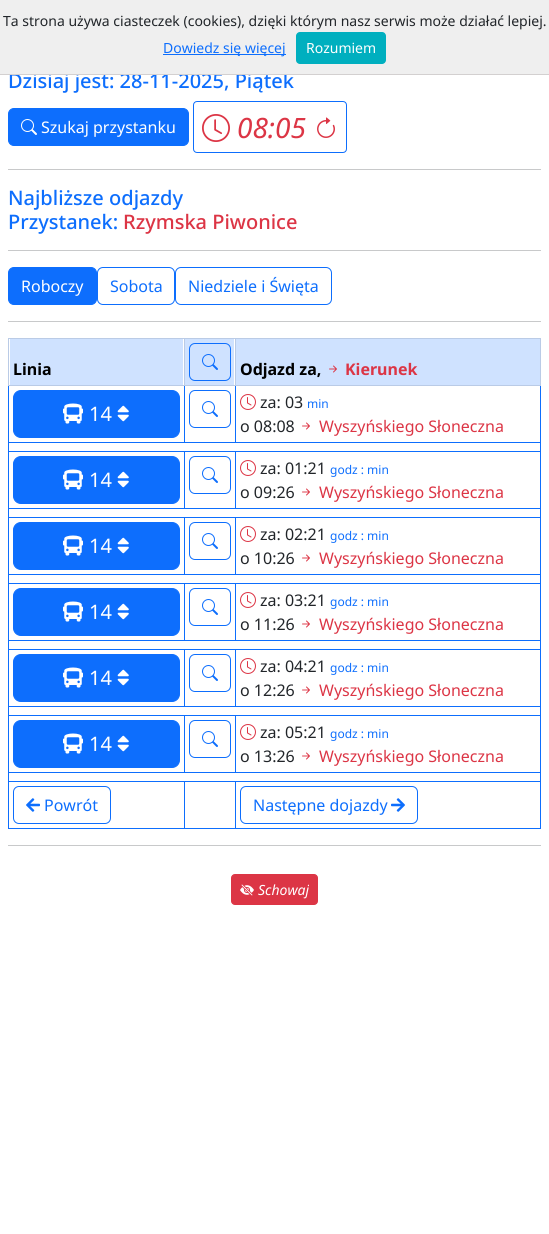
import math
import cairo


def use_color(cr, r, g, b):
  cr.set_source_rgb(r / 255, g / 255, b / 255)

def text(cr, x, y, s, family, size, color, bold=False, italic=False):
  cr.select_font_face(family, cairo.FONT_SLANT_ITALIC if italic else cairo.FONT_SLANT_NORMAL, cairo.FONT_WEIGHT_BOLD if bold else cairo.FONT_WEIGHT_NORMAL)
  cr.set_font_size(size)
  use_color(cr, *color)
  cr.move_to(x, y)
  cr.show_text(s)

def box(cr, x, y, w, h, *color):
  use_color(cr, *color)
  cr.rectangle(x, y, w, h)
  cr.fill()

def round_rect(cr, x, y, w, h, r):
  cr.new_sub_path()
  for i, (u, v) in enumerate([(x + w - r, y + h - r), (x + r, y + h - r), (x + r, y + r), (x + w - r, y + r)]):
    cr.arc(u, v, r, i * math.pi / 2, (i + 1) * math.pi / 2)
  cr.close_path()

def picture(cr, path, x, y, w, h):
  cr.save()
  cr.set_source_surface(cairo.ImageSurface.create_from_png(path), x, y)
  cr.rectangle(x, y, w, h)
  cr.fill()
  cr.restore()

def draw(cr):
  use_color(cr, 255, 255, 255)
  cr.paint()
  use_color(cr, 13, 110, 253)
  round_rect(cr, 8.5, 108.5, 180, 37, 5.5)
  cr.fill_preserve()
  cr.set_line_width(1)
  cr.stroke()
  picture(cr, "img_01.png", 21, 119, 16, 16)
  round_rect(cr, 193.5, 101.5, 153, 51, 3.5)
  cr.stroke()
  picture(cr, "img_02.png", 202, 114, 28, 28)
  picture(cr, "img_03.png", 317, 117, 18, 21)
  box(cr, 8, 169, 533, 1, 200, 201, 202)
  box(cr, 8, 250, 533, 1, 200, 201, 202)
  use_color(cr, 13, 110, 253)
  round_rect(cr, 8.5, 267.5, 88, 37, 5.5)
  cr.fill_preserve()
  cr.stroke()
  round_rect(cr, 97.5, 267.5, 77, 37, 5.5)
  cr.stroke()
  round_rect(cr, 175.5, 267.5, 156, 37, 5.5)
  cr.stroke()
  box(cr, 8, 321, 533, 1, 200, 201, 202)
  box(cr, 8, 338, 533, 1, 186, 203, 230)
  box(cr, 8, 385, 533, 1, 186, 203, 230)
  box(cr, 10, 339, 173, 46, 207, 226, 255)
  box(cr, 8, 442, 533, 1, 13, 110, 253)
  box(cr, 8, 451, 533, 1, 13, 110, 253)
  box(cr, 8, 508, 533, 1, 13, 110, 253)
  box(cr, 8, 517, 533, 1, 13, 110, 253)
  box(cr, 8, 574, 533, 1, 13, 110, 253)
  box(cr, 8, 583, 533, 1, 13, 110, 253)
  box(cr, 8, 640, 533, 1, 13, 110, 253)
  box(cr, 8, 649, 533, 1, 13, 110, 253)
  box(cr, 8, 706, 533, 1, 13, 110, 253)
  box(cr, 8, 715, 533, 1, 13, 110, 253)
  box(cr, 8, 772, 533, 1, 13, 110, 253)
  box(cr, 8, 781, 533, 1, 13, 110, 253)
  box(cr, 8, 828, 533, 1, 13, 110, 253)
  box(cr, 8, 385, 1, 444, 13, 110, 253)
  box(cr, 8, 338, 1, 48, 186, 203, 230)
  box(cr, 185, 339, 49, 46, 207, 226, 255)
  box(cr, 184, 385, 1, 58, 13, 110, 253)
  box(cr, 184, 338, 1, 48, 186, 203, 230)
  round_rect(cr, 189.5, 343.5, 41, 37, 5.5)
  use_color(cr, 13, 110, 253)
  cr.stroke()
  picture(cr, "img_04.png", 202, 354, 16, 16)
  box(cr, 236, 339, 304, 46, 207, 226, 255)
  box(cr, 540, 385, 1, 444, 13, 110, 253)
  box(cr, 540, 338, 1, 48, 186, 203, 230)
  box(cr, 235, 385, 1, 58, 13, 110, 253)
  box(cr, 235, 338, 1, 48, 186, 203, 230)
  picture(cr, "img_05.png", 329, 365, 8, 8)
  use_color(cr, 13, 110, 253)
  round_rect(cr, 13.5, 390.5, 166, 47, 7.5)
  cr.fill_preserve()
  cr.stroke()
  picture(cr, "img_06.png", 63, 403, 20, 21)
  picture(cr, "img_07.png", 117, 405, 12, 17)
  round_rect(cr, 189.5, 390.5, 41, 37, 5.5)
  cr.stroke()
  picture(cr, "img_08.png", 202, 401, 16, 16)
  picture(cr, "img_09.png", 240, 394, 16, 16)
  picture(cr, "img_10.png", 302, 422, 8, 8)
  round_rect(cr, 13.5, 456.5, 166, 47, 7.5)
  cr.fill_preserve()
  cr.stroke()
  picture(cr, "img_06.png", 63, 469, 20, 21)
  picture(cr, "img_07.png", 117, 471, 12, 17)
  box(cr, 184, 451, 1, 58, 13, 110, 253)
  round_rect(cr, 189.5, 456.5, 41, 37, 5.5)
  cr.stroke()
  picture(cr, "img_08.png", 202, 467, 16, 16)
  box(cr, 235, 451, 1, 58, 13, 110, 253)
  picture(cr, "img_09.png", 240, 460, 16, 16)
  picture(cr, "img_10.png", 302, 488, 8, 8)
  round_rect(cr, 13.5, 522.5, 166, 47, 7.5)
  cr.fill_preserve()
  cr.stroke()
  picture(cr, "img_06.png", 63, 535, 20, 21)
  picture(cr, "img_07.png", 117, 537, 12, 17)
  box(cr, 184, 517, 1, 58, 13, 110, 253)
  round_rect(cr, 189.5, 522.5, 41, 37, 5.5)
  cr.stroke()
  picture(cr, "img_08.png", 202, 533, 16, 16)
  box(cr, 235, 517, 1, 58, 13, 110, 253)
  picture(cr, "img_09.png", 240, 526, 16, 16)
  picture(cr, "img_10.png", 302, 554, 8, 8)
  round_rect(cr, 13.5, 588.5, 166, 47, 7.5)
  cr.fill_preserve()
  cr.stroke()
  picture(cr, "img_06.png", 63, 601, 20, 21)
  picture(cr, "img_07.png", 117, 603, 12, 17)
  box(cr, 184, 583, 1, 58, 13, 110, 253)
  round_rect(cr, 189.5, 588.5, 41, 37, 5.5)
  cr.stroke()
  picture(cr, "img_08.png", 202, 599, 16, 16)
  box(cr, 235, 583, 1, 58, 13, 110, 253)
  picture(cr, "img_09.png", 240, 592, 16, 16)
  picture(cr, "img_10.png", 302, 620, 8, 8)
  round_rect(cr, 13.5, 654.5, 166, 47, 7.5)
  cr.fill_preserve()
  cr.stroke()
  picture(cr, "img_06.png", 63, 667, 20, 21)
  picture(cr, "img_07.png", 117, 669, 12, 17)
  box(cr, 184, 649, 1, 58, 13, 110, 253)
  round_rect(cr, 189.5, 654.5, 41, 37, 5.5)
  cr.stroke()
  picture(cr, "img_08.png", 202, 665, 16, 16)
  box(cr, 235, 649, 1, 58, 13, 110, 253)
  picture(cr, "img_09.png", 240, 658, 16, 16)
  picture(cr, "img_10.png", 302, 686, 8, 8)
  round_rect(cr, 13.5, 720.5, 166, 47, 7.5)
  cr.fill_preserve()
  cr.stroke()
  picture(cr, "img_06.png", 63, 733, 20, 21)
  picture(cr, "img_07.png", 117, 735, 12, 17)
  box(cr, 184, 715, 1, 58, 13, 110, 253)
  round_rect(cr, 189.5, 720.5, 41, 37, 5.5)
  cr.stroke()
  picture(cr, "img_08.png", 202, 731, 16, 16)
  box(cr, 235, 715, 1, 58, 13, 110, 253)
  picture(cr, "img_09.png", 240, 724, 16, 16)
  picture(cr, "img_10.png", 302, 752, 8, 8)
  round_rect(cr, 13.5, 786.5, 97, 37, 5.5)
  cr.stroke()
  picture(cr, "img_11.png", 26, 798, 14, 14)
  box(cr, 184, 781, 1, 48, 13, 110, 253)
  box(cr, 235, 781, 1, 48, 13, 110, 253)
  round_rect(cr, 240.5, 786.5, 177, 37, 5.5)
  cr.stroke()
  picture(cr, "img_12.png", 391, 798, 14, 14)
  box(cr, 8, 845, 533, 1, 200, 201, 202)
  use_color(cr, 220, 53, 69)
  round_rect(cr, 231.5, 874.5, 86, 30, 3.5)
  cr.fill_preserve()
  cr.stroke()
  picture(cr, "img_13.png", 240, 884, 14, 12)
  text(cr, 8, 88, "Dzisiaj jest: 28-11-2025, Piątek", "Noto Sans Medium", 20, (13, 110, 253))
  box(cr, 0, 0, 549, 74, 239, 239, 239)
  use_color(cr, 0, 175, 191)
  round_rect(cr, 296, 32, 90, 32, 4)
  cr.fill()
  text(cr, 306, 53, "Rozumiem", "Noto Sans", 14, (255, 255, 255))
  box(cr, 163, 54, 123, 1, 13, 110, 253)
  text(cr, 163, 53, "Dowiedz się więcej", "Noto Sans", 14, (13, 110, 253))
  text(cr, 3, 26, "Ta strona używa ciasteczek (cookies), dzięki którym nasz serwis może działać lepiej.", "Noto Sans", 14, (33, 37, 41))
  box(cr, 0, 74, 549, 1, 211, 208, 208)
  text(cr, 41, 133, "Szukaj przystanku", "Noto Sans", 16, (255, 255, 255))
  text(cr, 237, 138, "08:05", "Noto Sans", 28, (220, 53, 69), italic=True)
  text(cr, 8, 205, "Najbliższe odjazdy", "Noto Sans Medium", 20, (13, 110, 253))
  text(cr, 8, 229, "Przystanek:", "Noto Sans Medium", 20, (13, 110, 253))
  text(cr, 123, 229, "Rzymska Piwonice", "Noto Sans Medium", 20, (220, 53, 69))
  text(cr, 21, 292, "Roboczy", "Noto Sans", 16, (255, 255, 255))
  text(cr, 110, 292, "Sobota", "Noto Sans", 16, (13, 110, 253))
  text(cr, 188, 292, "Niedziele i Święta", "Noto Sans", 16, (13, 110, 253))
  text(cr, 13, 375, "Linia", "Noto Sans", 16, (0, 0, 0), bold=True)
  text(cr, 240, 375, "Odjazd za,", "Noto Sans", 16, (0, 0, 0), bold=True)
  text(cr, 345, 375, "Kierunek", "Noto Sans", 16, (220, 53, 69), bold=True)
  text(cr, 89, 421, "14", "Noto Sans", 20, (255, 255, 255))
  text(cr, 260, 408, "za: 03", "Noto Sans", 16, (33, 37, 41))
  text(cr, 307, 408, "min", "Noto Sans", 12, (13, 110, 253))
  text(cr, 240, 432, "o 08:08", "Noto Sans", 16, (33, 37, 41))
  text(cr, 319, 432, "Wyszyńskiego Słoneczna", "Noto Sans", 16, (220, 53, 69))
  text(cr, 89, 487, "14", "Noto Sans", 20, (255, 255, 255))
  text(cr, 260, 474, "za: 01:21", "Noto Sans", 16, (33, 37, 41))
  text(cr, 330, 474, "godz : min", "Noto Sans", 12, (13, 110, 253))
  text(cr, 240, 498, "o 09:26", "Noto Sans", 16, (33, 37, 41))
  text(cr, 319, 498, "Wyszyńskiego Słoneczna", "Noto Sans", 16, (220, 53, 69))
  text(cr, 89, 553, "14", "Noto Sans", 20, (255, 255, 255))
  text(cr, 260, 540, "za: 02:21", "Noto Sans", 16, (33, 37, 41))
  text(cr, 330, 540, "godz : min", "Noto Sans", 12, (13, 110, 253))
  text(cr, 240, 564, "o 10:26", "Noto Sans", 16, (33, 37, 41))
  text(cr, 319, 564, "Wyszyńskiego Słoneczna", "Noto Sans", 16, (220, 53, 69))
  text(cr, 89, 619, "14", "Noto Sans", 20, (255, 255, 255))
  text(cr, 260, 606, "za: 03:21", "Noto Sans", 16, (33, 37, 41))
  text(cr, 330, 606, "godz : min", "Noto Sans", 12, (13, 110, 253))
  text(cr, 240, 630, "o 11:26", "Noto Sans", 16, (33, 37, 41))
  text(cr, 319, 630, "Wyszyńskiego Słoneczna", "Noto Sans", 16, (220, 53, 69))
  text(cr, 89, 685, "14", "Noto Sans", 20, (255, 255, 255))
  text(cr, 260, 672, "za: 04:21", "Noto Sans", 16, (33, 37, 41))
  text(cr, 330, 672, "godz : min", "Noto Sans", 12, (13, 110, 253))
  text(cr, 240, 696, "o 12:26", "Noto Sans", 16, (33, 37, 41))
  text(cr, 319, 696, "Wyszyńskiego Słoneczna", "Noto Sans", 16, (220, 53, 69))
  text(cr, 89, 751, "14", "Noto Sans", 20, (255, 255, 255))
  text(cr, 260, 738, "za: 05:21", "Noto Sans", 16, (33, 37, 41))
  text(cr, 330, 738, "godz : min", "Noto Sans", 12, (13, 110, 253))
  text(cr, 240, 762, "o 13:26", "Noto Sans", 16, (33, 37, 41))
  text(cr, 319, 762, "Wyszyńskiego Słoneczna", "Noto Sans", 16, (220, 53, 69))
  text(cr, 44, 811, "Powrót", "Noto Sans", 16, (13, 110, 253))
  text(cr, 253, 811, "Następne dojazdy", "Noto Sans", 16, (13, 110, 253))
  text(cr, 258, 895, "Schowaj", "Noto Sans", 14, (255, 255, 255), italic=True)


surface = cairo.ImageSurface(cairo.FORMAT_RGB24, 549, 1234)
cr = cairo.Context(surface)
options = cairo.FontOptions()
options.set_hint_metrics(cairo.HINT_METRICS_OFF)
options.set_hint_style(cairo.HINT_STYLE_NONE)
cr.set_font_options(options)
cr.set_miter_limit(4)
draw(cr)
surface.write_to_png("out.png")
